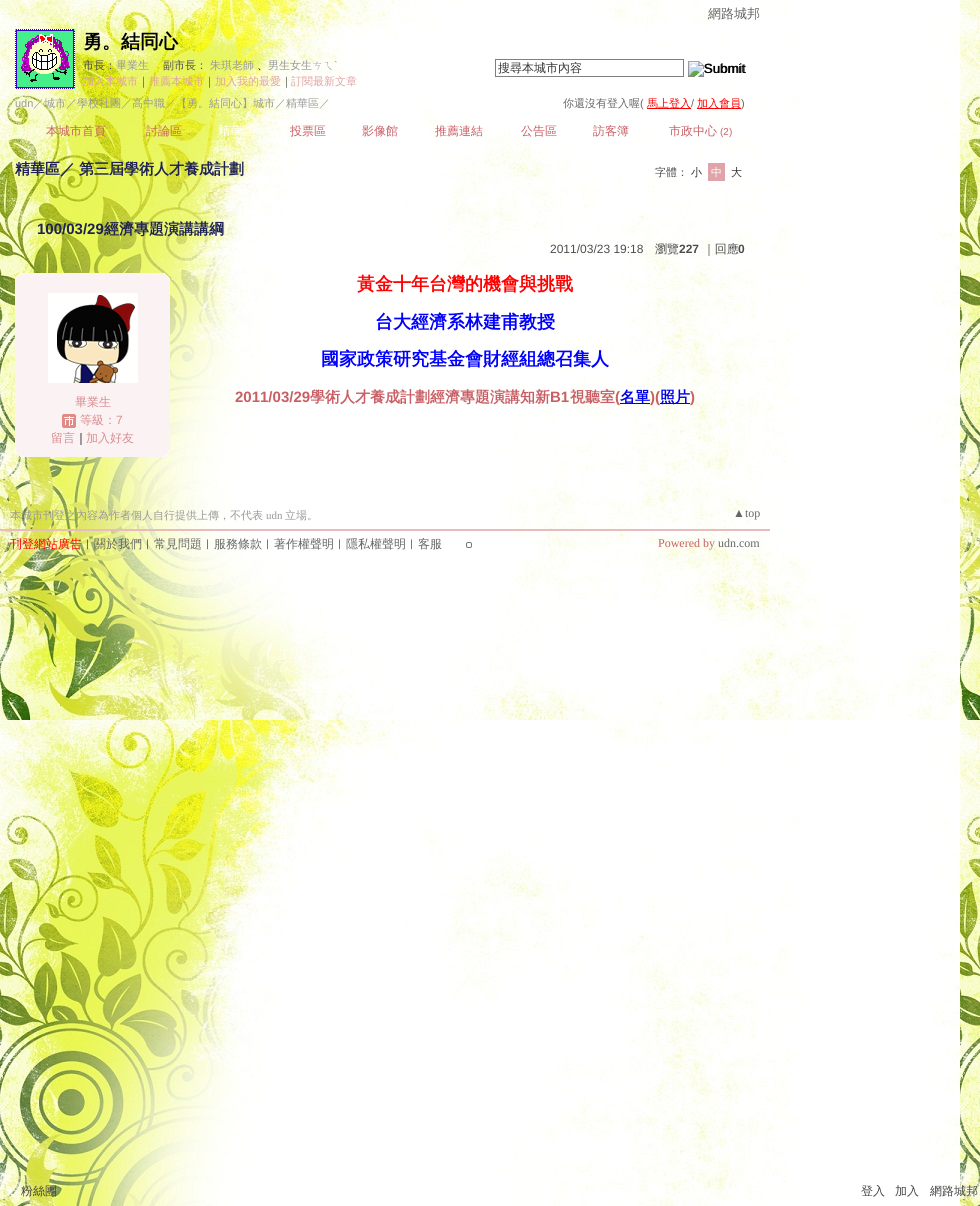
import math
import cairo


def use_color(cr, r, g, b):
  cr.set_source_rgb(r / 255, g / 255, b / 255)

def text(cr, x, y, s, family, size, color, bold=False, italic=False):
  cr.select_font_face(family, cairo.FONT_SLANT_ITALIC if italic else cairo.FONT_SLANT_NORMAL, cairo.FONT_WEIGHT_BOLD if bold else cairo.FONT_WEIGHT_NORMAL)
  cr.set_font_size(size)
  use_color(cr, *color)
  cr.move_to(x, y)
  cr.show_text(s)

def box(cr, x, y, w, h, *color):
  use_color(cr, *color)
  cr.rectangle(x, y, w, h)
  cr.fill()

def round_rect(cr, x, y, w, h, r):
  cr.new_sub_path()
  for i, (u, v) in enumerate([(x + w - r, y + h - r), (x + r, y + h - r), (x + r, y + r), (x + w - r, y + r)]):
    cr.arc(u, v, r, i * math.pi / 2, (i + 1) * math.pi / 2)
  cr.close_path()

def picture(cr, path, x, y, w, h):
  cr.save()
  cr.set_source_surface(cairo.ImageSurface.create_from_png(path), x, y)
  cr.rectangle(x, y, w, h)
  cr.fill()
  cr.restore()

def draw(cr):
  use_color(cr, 255, 255, 255)
  cr.paint()
  picture(cr, "img_01.png", 0, 0, 980, 1206)
  picture(cr, "img_02.png", 15, 29, 60, 60)
  cr.rectangle(495.5, 59.5, 188, 17)
  use_color(cr, 128, 128, 128)
  cr.set_line_width(1)
  cr.stroke()
  picture(cr, "img_03.png", 688, 61, 57, 16)
  box(cr, 647, 108, 44, 1, 255, 0, 0)
  box(cr, 697, 108, 44, 1, 255, 0, 0)
  box(cr, 708, 163, 17, 18, 224, 163, 167)
  box(cr, 620, 403, 30, 1, 0, 0, 238)
  box(cr, 660, 403, 30, 1, 0, 0, 238)
  picture(cr, "img_04.png", 15, 273, 10, 10)
  box(cr, 25, 273, 135, 10, 251, 242, 243)
  picture(cr, "img_05.png", 160, 273, 10, 10)
  box(cr, 15, 283, 155, 164, 251, 242, 243)
  picture(cr, "img_06.png", 48, 293, 90, 90)
  picture(cr, "img_07.png", 62, 414, 14, 14)
  picture(cr, "img_08.png", 15, 447, 10, 10)
  box(cr, 25, 447, 135, 10, 251, 242, 243)
  picture(cr, "img_09.png", 160, 447, 10, 10)
  box(cr, 0, 529, 770, 2, 232, 187, 189)
  round_rect(cr, 466.5, 542.5, 5, 5, 1.5)
  use_color(cr, 118, 118, 118)
  cr.stroke()
  text(cr, 708, 18, "網路城邦", "WenQuanYi Zen Hei Medium", 13, (102, 102, 102))
  text(cr, 83, 48, "勇。結同心", "WenQuanYi Zen Hei", 19, (0, 0, 0), bold=True)
  text(cr, 83, 69, "市長：", "WenQuanYi Zen Hei Medium", 11, (77, 77, 77))
  text(cr, 116, 69, "畢業生", "WenQuanYi Zen Hei Medium", 11, (153, 153, 153))
  text(cr, 163, 69, "副市長：", "WenQuanYi Zen Hei Medium", 11, (77, 77, 77))
  text(cr, 210, 69, "朱琪老師", "WenQuanYi Zen Hei Medium", 11, (153, 153, 153))
  text(cr, 268, 69, "男生女生ㄘㄟ", "WenQuanYi Zen Hei Medium", 11, (153, 153, 153))
  text(cr, 334, 69, "ˋ", "Liberation Sans", 11, (153, 153, 153))
  text(cr, 257, 69, "、", "WenQuanYi Zen Hei Medium", 11, (0, 0, 0))
  text(cr, 83, 85, "加入本城市", "WenQuanYi Zen Hei Medium", 11, (224, 163, 167))
  text(cr, 138, 85, "｜", "WenQuanYi Zen Hei Medium", 11, (77, 77, 77))
  text(cr, 149, 85, "推薦本城市", "WenQuanYi Zen Hei Medium", 11, (224, 163, 167))
  text(cr, 204, 85, "｜", "WenQuanYi Zen Hei Medium", 11, (77, 77, 77))
  text(cr, 215, 85, "加入我的最愛", "WenQuanYi Zen Hei Medium", 11, (224, 163, 167))
  text(cr, 281, 85, "｜", "WenQuanYi Zen Hei Medium", 11, (77, 77, 77))
  text(cr, 291, 85, "訂閱最新文章", "WenQuanYi Zen Hei Medium", 11, (224, 163, 167))
  text(cr, 498, 72, "搜尋本城市內容", "WenQuanYi Zen Hei Medium", 12, (51, 51, 51))
  text(cr, 704, 73, "Submit", "Liberation Sans", 13.5, (0, 0, 0))
  text(cr, 15, 107, "udn", "Liberation Sans", 11, (153, 153, 153))
  text(cr, 33, 107, "／城市／學校社團／高中職／【勇。結同心】城市／精華區／", "WenQuanYi Zen Hei Medium", 11, (153, 153, 153))
  text(cr, 563, 107, "你還沒有登入喔", "WenQuanYi Zen Hei Medium", 11, (102, 102, 102))
  text(cr, 640, 107, "(", "Liberation Sans", 11, (102, 102, 102))
  text(cr, 647, 107, "馬上登入", "WenQuanYi Zen Hei Medium", 11, (255, 0, 0))
  text(cr, 691, 107, "/", "Liberation Sans", 11, (102, 102, 102))
  text(cr, 697, 107, "加入會員", "WenQuanYi Zen Hei Medium", 11, (255, 0, 0))
  text(cr, 741, 107, ")", "Liberation Sans", 11, (102, 102, 102))
  text(cr, 46, 135, "本城市首頁", "WenQuanYi Zen Hei Medium", 12, (201, 95, 101))
  text(cr, 146, 135, "討論區", "WenQuanYi Zen Hei Medium", 12, (201, 95, 101))
  text(cr, 218, 135, "精華區", "WenQuanYi Zen Hei Medium", 12, (255, 255, 255))
  text(cr, 290, 135, "投票區", "WenQuanYi Zen Hei Medium", 12, (201, 95, 101))
  text(cr, 362, 135, "影像館", "WenQuanYi Zen Hei Medium", 12, (201, 95, 101))
  text(cr, 435, 135, "推薦連結", "WenQuanYi Zen Hei Medium", 12, (201, 95, 101))
  text(cr, 521, 135, "公告區", "WenQuanYi Zen Hei Medium", 12, (201, 95, 101))
  text(cr, 593, 135, "訪客簿", "WenQuanYi Zen Hei Medium", 12, (201, 95, 101))
  text(cr, 669, 135, "市政中心", "WenQuanYi Zen Hei Medium", 12, (201, 95, 101))
  text(cr, 720, 135, "(2)", "Liberation Sans", 10, (201, 95, 101))
  text(cr, 15, 174, "精華區／", "WenQuanYi Zen Hei", 15, (30, 33, 83), bold=True)
  text(cr, 79, 174, "第三屆學術人才養成計劃", "WenQuanYi Zen Hei", 15, (30, 33, 83), bold=True)
  text(cr, 655, 176, "字體：", "WenQuanYi Zen Hei Medium", 11, (77, 77, 77))
  text(cr, 691, 176, "小", "WenQuanYi Zen Hei Medium", 11, (51, 51, 51))
  text(cr, 711, 176, "中", "WenQuanYi Zen Hei Medium", 11, (255, 255, 255))
  text(cr, 731, 176, "大", "WenQuanYi Zen Hei Medium", 11, (51, 51, 51))
  text(cr, 37, 234, "100/03/29", "Liberation Sans", 15, (30, 33, 83), bold=True)
  text(cr, 104, 234, "經濟專題演講講綱", "WenQuanYi Zen Hei", 15, (30, 33, 83), bold=True)
  text(cr, 550, 253, "2011/03/23 19:18", "Liberation Sans", 12, (77, 77, 77))
  text(cr, 655, 253, "瀏覽", "WenQuanYi Zen Hei Medium", 12, (77, 77, 77))
  text(cr, 679, 253, "227", "Liberation Sans", 12, (77, 77, 77), bold=True)
  text(cr, 703, 253, "｜回應", "WenQuanYi Zen Hei Medium", 12, (77, 77, 77))
  text(cr, 738, 253, "0", "Liberation Sans", 12, (77, 77, 77), bold=True)
  text(cr, 357, 290, "黃金十年台灣的機會與挑戰", "WenQuanYi Zen Hei", 18, (255, 0, 0), bold=True)
  text(cr, 375, 328, "台大經濟系林建甫教授", "WenQuanYi Zen Hei", 18, (0, 0, 255), bold=True)
  text(cr, 321, 365, "國家政策研究基金會財經組總召集人", "WenQuanYi Zen Hei", 18, (0, 0, 255), bold=True)
  text(cr, 235, 402, "2011/03/29", "Liberation Sans", 15, (201, 95, 101), bold=True)
  text(cr, 310, 402, "學術人才養成計劃經濟專題演講知新", "WenQuanYi Zen Hei", 15, (201, 95, 101), bold=True)
  text(cr, 550, 402, "B1", "Liberation Sans", 15, (201, 95, 101), bold=True)
  text(cr, 570, 402, "視聽室", "WenQuanYi Zen Hei", 15, (201, 95, 101), bold=True)
  text(cr, 615, 402, "(", "Liberation Sans", 15, (201, 95, 101), bold=True)
  text(cr, 620, 402, "名單", "WenQuanYi Zen Hei", 15, (0, 0, 238), bold=True)
  text(cr, 650, 402, ")(", "Liberation Sans", 15, (201, 95, 101), bold=True)
  text(cr, 660, 402, "照片", "WenQuanYi Zen Hei", 15, (0, 0, 238), bold=True)
  text(cr, 690, 402, ")", "Liberation Sans", 15, (201, 95, 101), bold=True)
  text(cr, 75, 406, "畢業生", "WenQuanYi Zen Hei Medium", 12, (217, 141, 145))
  text(cr, 80, 424, "等級：", "WenQuanYi Zen Hei Medium", 12, (217, 141, 145))
  text(cr, 116, 424, "7", "Liberation Sans", 12, (217, 141, 145))
  text(cr, 51, 442, "留言", "WenQuanYi Zen Hei Medium", 12, (217, 141, 145))
  text(cr, 75, 442, "｜", "WenQuanYi Zen Hei Medium", 12, (0, 0, 0))
  text(cr, 86, 442, "加入好友", "WenQuanYi Zen Hei Medium", 12, (217, 141, 145))
  text(cr, 10, 519, "本城市刊登之內容為作者個人自行提供上傳，不代表", "WenQuanYi Zen Hei Medium", 11, (153, 153, 153))
  text(cr, 266, 519, "udn", "Liberation Serif", 11, (153, 153, 153))
  text(cr, 285, 519, "立場。", "WenQuanYi Zen Hei Medium", 11, (153, 153, 153))
  text(cr, 733, 517, "▲top", "Liberation Serif", 12, (102, 102, 102))
  text(cr, 10, 548, "刊登網站廣告", "WenQuanYi Zen Hei Medium", 12, (255, 0, 0))
  text(cr, 82, 548, "︱", "WenQuanYi Zen Hei Medium", 12, (0, 0, 0))
  text(cr, 94, 548, "關於我們", "WenQuanYi Zen Hei Medium", 12, (102, 102, 102))
  text(cr, 142, 548, "︱", "WenQuanYi Zen Hei Medium", 12, (0, 0, 0))
  text(cr, 154, 548, "常見問題", "WenQuanYi Zen Hei Medium", 12, (102, 102, 102))
  text(cr, 202, 548, "︱", "WenQuanYi Zen Hei Medium", 12, (0, 0, 0))
  text(cr, 214, 548, "服務條款", "WenQuanYi Zen Hei Medium", 12, (102, 102, 102))
  text(cr, 262, 548, "︱", "WenQuanYi Zen Hei Medium", 12, (0, 0, 0))
  text(cr, 274, 548, "著作權聲明", "WenQuanYi Zen Hei Medium", 12, (102, 102, 102))
  text(cr, 334, 548, "︱", "WenQuanYi Zen Hei Medium", 12, (0, 0, 0))
  text(cr, 346, 548, "隱私權聲明", "WenQuanYi Zen Hei Medium", 12, (102, 102, 102))
  text(cr, 406, 548, "︱", "WenQuanYi Zen Hei Medium", 12, (0, 0, 0))
  text(cr, 418, 548, "客服", "WenQuanYi Zen Hei Medium", 12, (102, 102, 102))
  text(cr, 658, 547, "Powered by", "Liberation Serif", 12, (201, 95, 101))
  text(cr, 718, 547, "udn.com", "Liberation Serif", 12, (102, 102, 102))
  text(cr, 21, 1195, "粉絲團", "WenQuanYi Zen Hei Medium", 12, (68, 68, 68))
  text(cr, 861, 1195, "登入", "WenQuanYi Zen Hei Medium", 12, (68, 68, 68))
  text(cr, 895, 1195, "加入", "WenQuanYi Zen Hei Medium", 12, (68, 68, 68))
  text(cr, 930, 1195, "網路城邦", "WenQuanYi Zen Hei Medium", 12, (68, 68, 68))


surface = cairo.ImageSurface(cairo.FORMAT_RGB24, 980, 1206)
cr = cairo.Context(surface)
options = cairo.FontOptions()
options.set_hint_metrics(cairo.HINT_METRICS_OFF)
options.set_hint_style(cairo.HINT_STYLE_NONE)
cr.set_font_options(options)
cr.set_miter_limit(4)
draw(cr)
surface.write_to_png("out.png")
